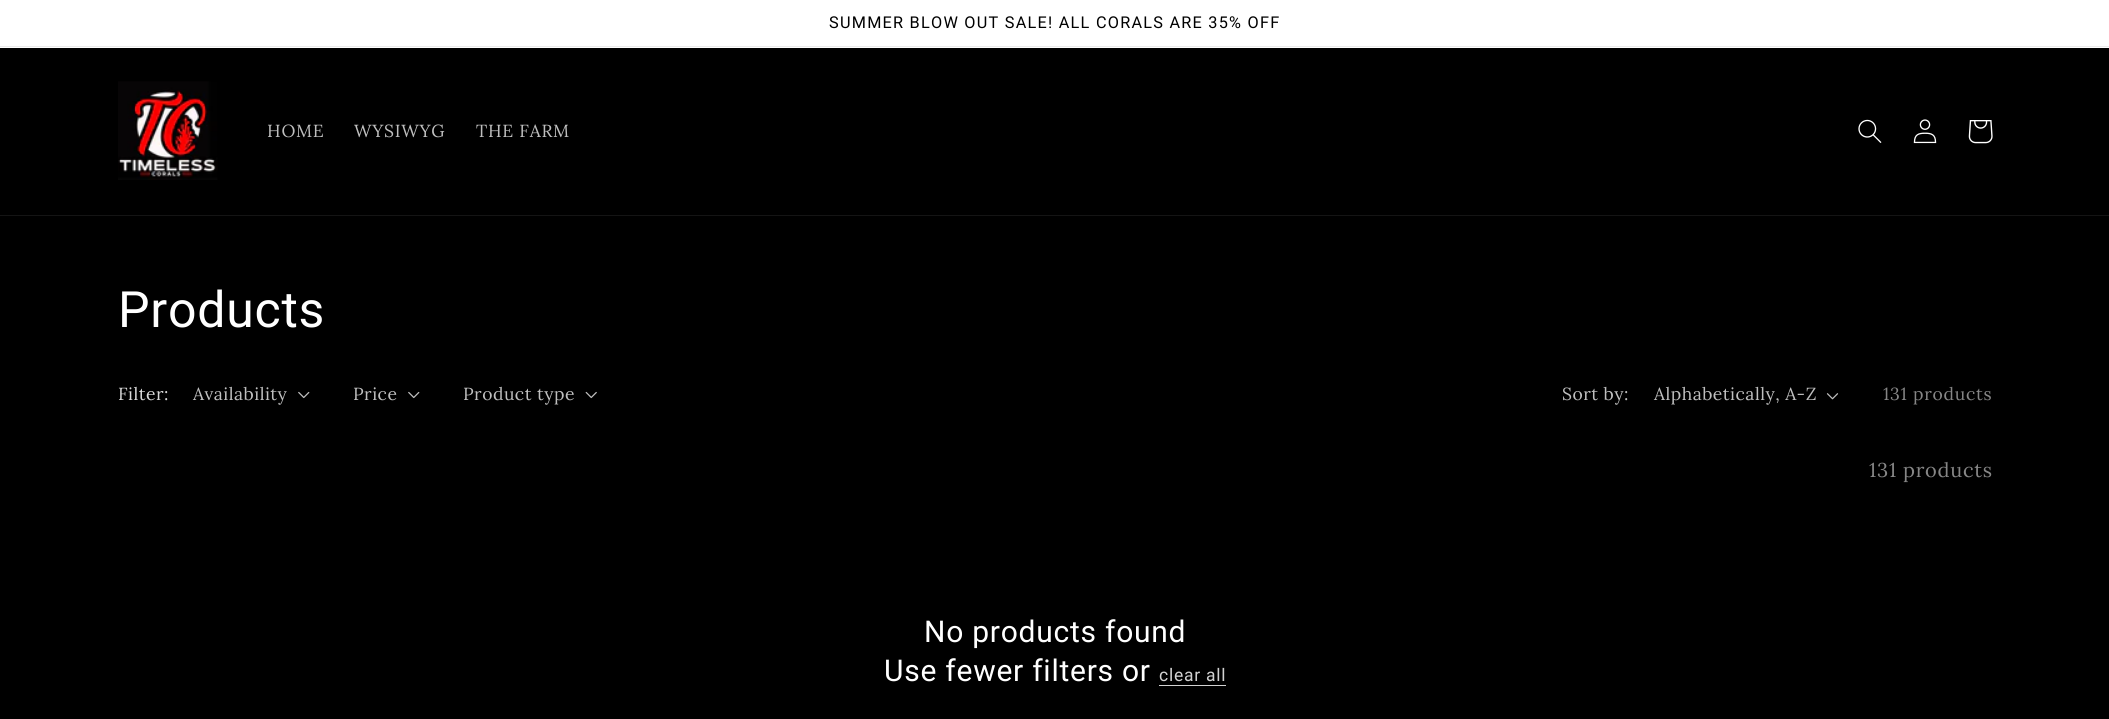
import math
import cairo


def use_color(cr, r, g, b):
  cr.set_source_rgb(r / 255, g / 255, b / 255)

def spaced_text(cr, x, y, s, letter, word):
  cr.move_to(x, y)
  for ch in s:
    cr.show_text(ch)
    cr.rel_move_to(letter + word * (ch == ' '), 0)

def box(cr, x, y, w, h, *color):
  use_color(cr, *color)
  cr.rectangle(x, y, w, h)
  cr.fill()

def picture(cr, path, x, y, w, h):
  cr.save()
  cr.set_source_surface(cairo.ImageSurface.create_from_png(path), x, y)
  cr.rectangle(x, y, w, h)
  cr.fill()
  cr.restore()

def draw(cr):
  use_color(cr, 0, 0, 0)
  cr.paint()
  box(cr, 0, 0, 2109, 48, 255, 255, 255)
  box(cr, 0, 46, 2109, 1, 235, 235, 235)
  box(cr, 0, 215, 2109, 1, 20, 20, 20)
  picture(cr, "img_01.png", 118, 81, 100, 99)
  picture(cr, "img_02.png", 1858, 119, 24, 24)
  picture(cr, "img_03.png", 1913, 119, 24, 25)
  picture(cr, "img_04.png", 1968, 120, 25, 24)
  picture(cr, "img_05.png", 298, 391, 12, 8)
  picture(cr, "img_05.png", 408, 391, 12, 8)
  picture(cr, "img_06.png", 585, 391, 12, 8)
  picture(cr, "img_07.png", 1826, 393, 13, 7)
  box(cr, 1159, 685, 67, 1, 210, 210, 210)
  cr.select_font_face("Roboto")
  cr.set_font_size(16.25)
  use_color(cr, 0, 0, 0)
  spaced_text(cr, 829, 28, "SUMMER BLOW OUT SALE! ALL CORALS ARE 35% OFF", 1.25, 0)
  cr.select_font_face("Lora")
  cr.set_font_size(17.5)
  use_color(cr, 191, 191, 191)
  spaced_text(cr, 267, 137, "HOME", 0.75, 0)
  spaced_text(cr, 354, 137, "WYSIWYG", 0.75, 0)
  spaced_text(cr, 476, 137, "THE FARM", 0.75, 0)
  cr.select_font_face("Roboto")
  cr.set_font_size(50)
  use_color(cr, 255, 255, 255)
  spaced_text(cr, 118, 327, "Products", 0.75, 0)
  cr.select_font_face("Lora")
  cr.set_font_size(17.5)
  use_color(cr, 217, 217, 217)
  spaced_text(cr, 118, 400, "Filter:", 0.5, 0)
  use_color(cr, 191, 191, 191)
  spaced_text(cr, 193, 400, "Availability", 0.5, 0)
  spaced_text(cr, 353, 400, "Price", 0.5, 0)
  spaced_text(cr, 463, 400, "Product type", 0.5, 0)
  spaced_text(cr, 1562, 400, "Sort by:", 0.5, 0)
  spaced_text(cr, 1654, 400, "Alphabetically, A-Z", 0.5, 0)
  use_color(cr, 134, 134, 134)
  spaced_text(cr, 1883, 400, "131 products", 0.75, 0)
  cr.set_font_size(20)
  spaced_text(cr, 1869, 477, "131 products", 0.75, 0)
  cr.select_font_face("Roboto")
  cr.set_font_size(30)
  use_color(cr, 255, 255, 255)
  spaced_text(cr, 924, 642, "No products found", 0.75, 0)
  spaced_text(cr, 884, 681, "Use fewer filters or", 0.75, 0)
  cr.set_font_size(17.5)
  use_color(cr, 210, 210, 210)
  spaced_text(cr, 1159, 681, "clear all", 0.75, 0)


surface = cairo.ImageSurface(cairo.FORMAT_RGB24, 2109, 719)
cr = cairo.Context(surface)
options = cairo.FontOptions()
options.set_hint_metrics(cairo.HINT_METRICS_OFF)
options.set_hint_style(cairo.HINT_STYLE_NONE)
cr.set_font_options(options)
cr.set_miter_limit(4)
draw(cr)
surface.write_to_png("out.png")
